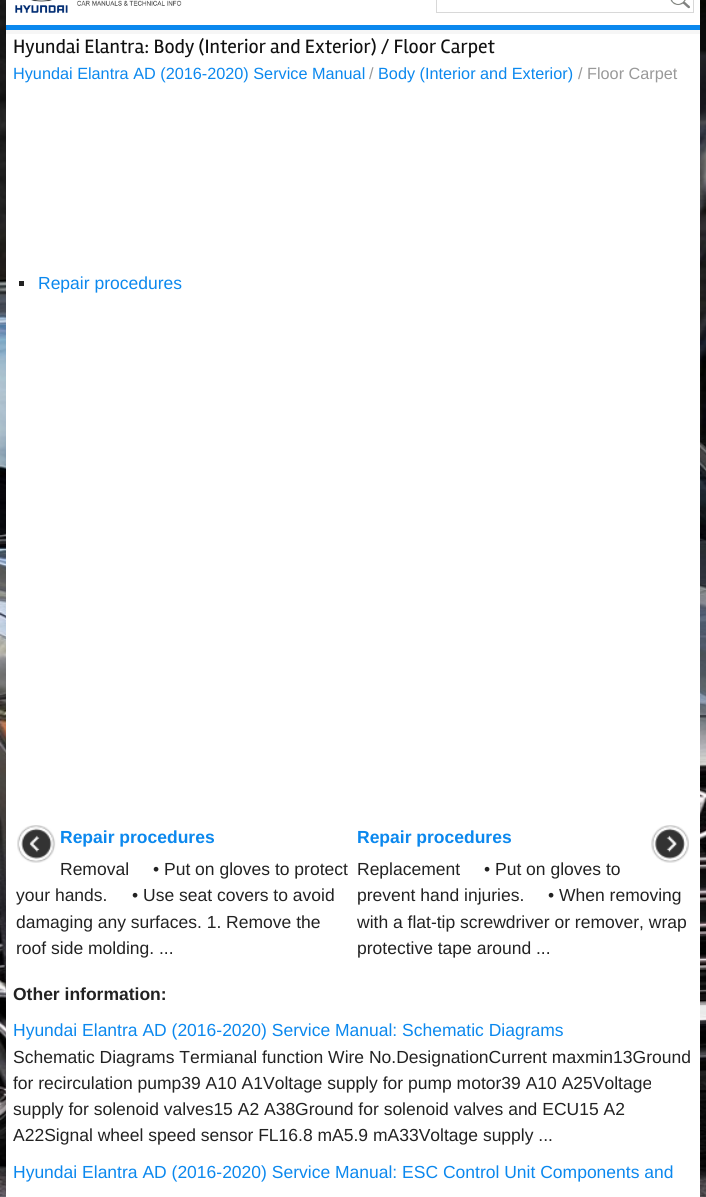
import math
import cairo


def use_color(cr, r, g, b):
  cr.set_source_rgb(r / 255, g / 255, b / 255)

def text(cr, x, y, s, family, size, color, bold=False, italic=False):
  cr.select_font_face(family, cairo.FONT_SLANT_ITALIC if italic else cairo.FONT_SLANT_NORMAL, cairo.FONT_WEIGHT_BOLD if bold else cairo.FONT_WEIGHT_NORMAL)
  cr.set_font_size(size)
  use_color(cr, *color)
  cr.move_to(x, y)
  cr.show_text(s)

def box(cr, x, y, w, h, *color):
  use_color(cr, *color)
  cr.rectangle(x, y, w, h)
  cr.fill()

def picture(cr, path, x, y, w, h):
  cr.save()
  cr.set_source_surface(cairo.ImageSurface.create_from_png(path), x, y)
  cr.rectangle(x, y, w, h)
  cr.fill()
  cr.restore()

def draw(cr):
  use_color(cr, 255, 255, 255)
  cr.paint()
  picture(cr, "img_01.png", 0, 0, 706, 1197)
  box(cr, 6, 0, 694, 25, 255, 255, 255)
  picture(cr, "img_02.png", 15, 0, 167, 13)
  cr.rectangle(436.5, -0.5, 257, 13)
  use_color(cr, 216, 216, 216)
  cr.set_line_width(1)
  cr.stroke()
  picture(cr, "img_03.png", 670, 0, 20, 9)
  box(cr, 6, 25, 694, 5, 11, 136, 238)
  box(cr, 6, 34, 694, 1163, 255, 255, 255)
  box(cr, 6, 30, 694, 4, 246, 246, 246)
  box(cr, 19, 281, 5, 5, 34, 34, 34)
  picture(cr, "img_04.png", 17, 825, 39, 38)
  picture(cr, "img_05.png", 651, 825, 38, 38)
  text(cr, 13, 53, "Hyundai Elantra: Body (Interior and Exterior) / Floor Carpet", "Rambla", 20, (17, 17, 17))
  text(cr, 13, 79, "Hyundai Elantra AD (2016-2020) Service Manual", "Liberation Sans", 16.25, (11, 136, 238))
  text(cr, 369, 79, "/", "Liberation Sans", 16.25, (153, 153, 153))
  text(cr, 378, 79, "Body (Interior and Exterior)", "Liberation Sans", 16.25, (11, 136, 238))
  text(cr, 578, 79, "/ Floor Carpet", "Liberation Sans", 16.25, (153, 153, 153))
  text(cr, 38, 289, "Repair procedures", "Liberation Sans", 17.5, (11, 136, 238))
  text(cr, 60, 843, "Repair procedures", "Liberation Sans", 17.5, (11, 136, 238), bold=True)
  text(cr, 60, 875, "Removal", "Liberation Sans", 17.5, (34, 34, 34))
  text(cr, 153, 875, "• Put on gloves to protect", "Liberation Sans", 17.5, (34, 34, 34))
  text(cr, 16, 901, "your hands.", "Liberation Sans", 17.5, (34, 34, 34))
  text(cr, 132, 901, "• Use seat covers to avoid", "Liberation Sans", 17.5, (34, 34, 34))
  text(cr, 16, 928, "damaging any surfaces. 1. Remove the", "Liberation Sans", 17.5, (34, 34, 34))
  text(cr, 16, 954, "roof side molding. ...", "Liberation Sans", 17.5, (34, 34, 34))
  text(cr, 357, 843, "Repair procedures", "Liberation Sans", 17.5, (11, 136, 238), bold=True)
  text(cr, 357, 875, "Replacement", "Liberation Sans", 17.5, (34, 34, 34))
  text(cr, 484, 875, "• Put on gloves to", "Liberation Sans", 17.5, (34, 34, 34))
  text(cr, 357, 901, "prevent hand injuries.", "Liberation Sans", 17.5, (34, 34, 34))
  text(cr, 548, 901, "• When removing", "Liberation Sans", 17.5, (34, 34, 34))
  text(cr, 357, 928, "with a flat-tip screwdriver or remover, wrap", "Liberation Sans", 17.5, (34, 34, 34))
  text(cr, 357, 954, "protective tape around ...", "Liberation Sans", 17.5, (34, 34, 34))
  text(cr, 13, 1000, "Other information:", "Liberation Sans", 17.5, (34, 34, 34), bold=True)
  text(cr, 13, 1036, "Hyundai Elantra AD (2016-2020) Service Manual: Schematic Diagrams", "Liberation Sans", 17.5, (11, 136, 238))
  text(cr, 13, 1063, "Schematic Diagrams Termianal function Wire No.DesignationCurrent maxmin13Ground", "Liberation Sans", 17.5, (34, 34, 34))
  text(cr, 13, 1089, "for recirculation pump39 A10 A1Voltage supply for pump motor39 A10 A25Voltage", "Liberation Sans", 17.5, (34, 34, 34))
  text(cr, 13, 1115, "supply for solenoid valves15 A2 A38Ground for solenoid valves and ECU15 A2", "Liberation Sans", 17.5, (34, 34, 34))
  text(cr, 13, 1141, "A22Signal wheel speed sensor FL16.8 mA5.9 mA33Voltage supply ...", "Liberation Sans", 17.5, (34, 34, 34))
  text(cr, 13, 1178, "Hyundai Elantra AD (2016-2020) Service Manual: ESC Control Unit Components and", "Liberation Sans", 17.5, (11, 136, 238))


surface = cairo.ImageSurface(cairo.FORMAT_RGB24, 706, 1197)
cr = cairo.Context(surface)
options = cairo.FontOptions()
options.set_hint_metrics(cairo.HINT_METRICS_OFF)
options.set_hint_style(cairo.HINT_STYLE_NONE)
cr.set_font_options(options)
cr.set_miter_limit(4)
draw(cr)
surface.write_to_png("out.png")
